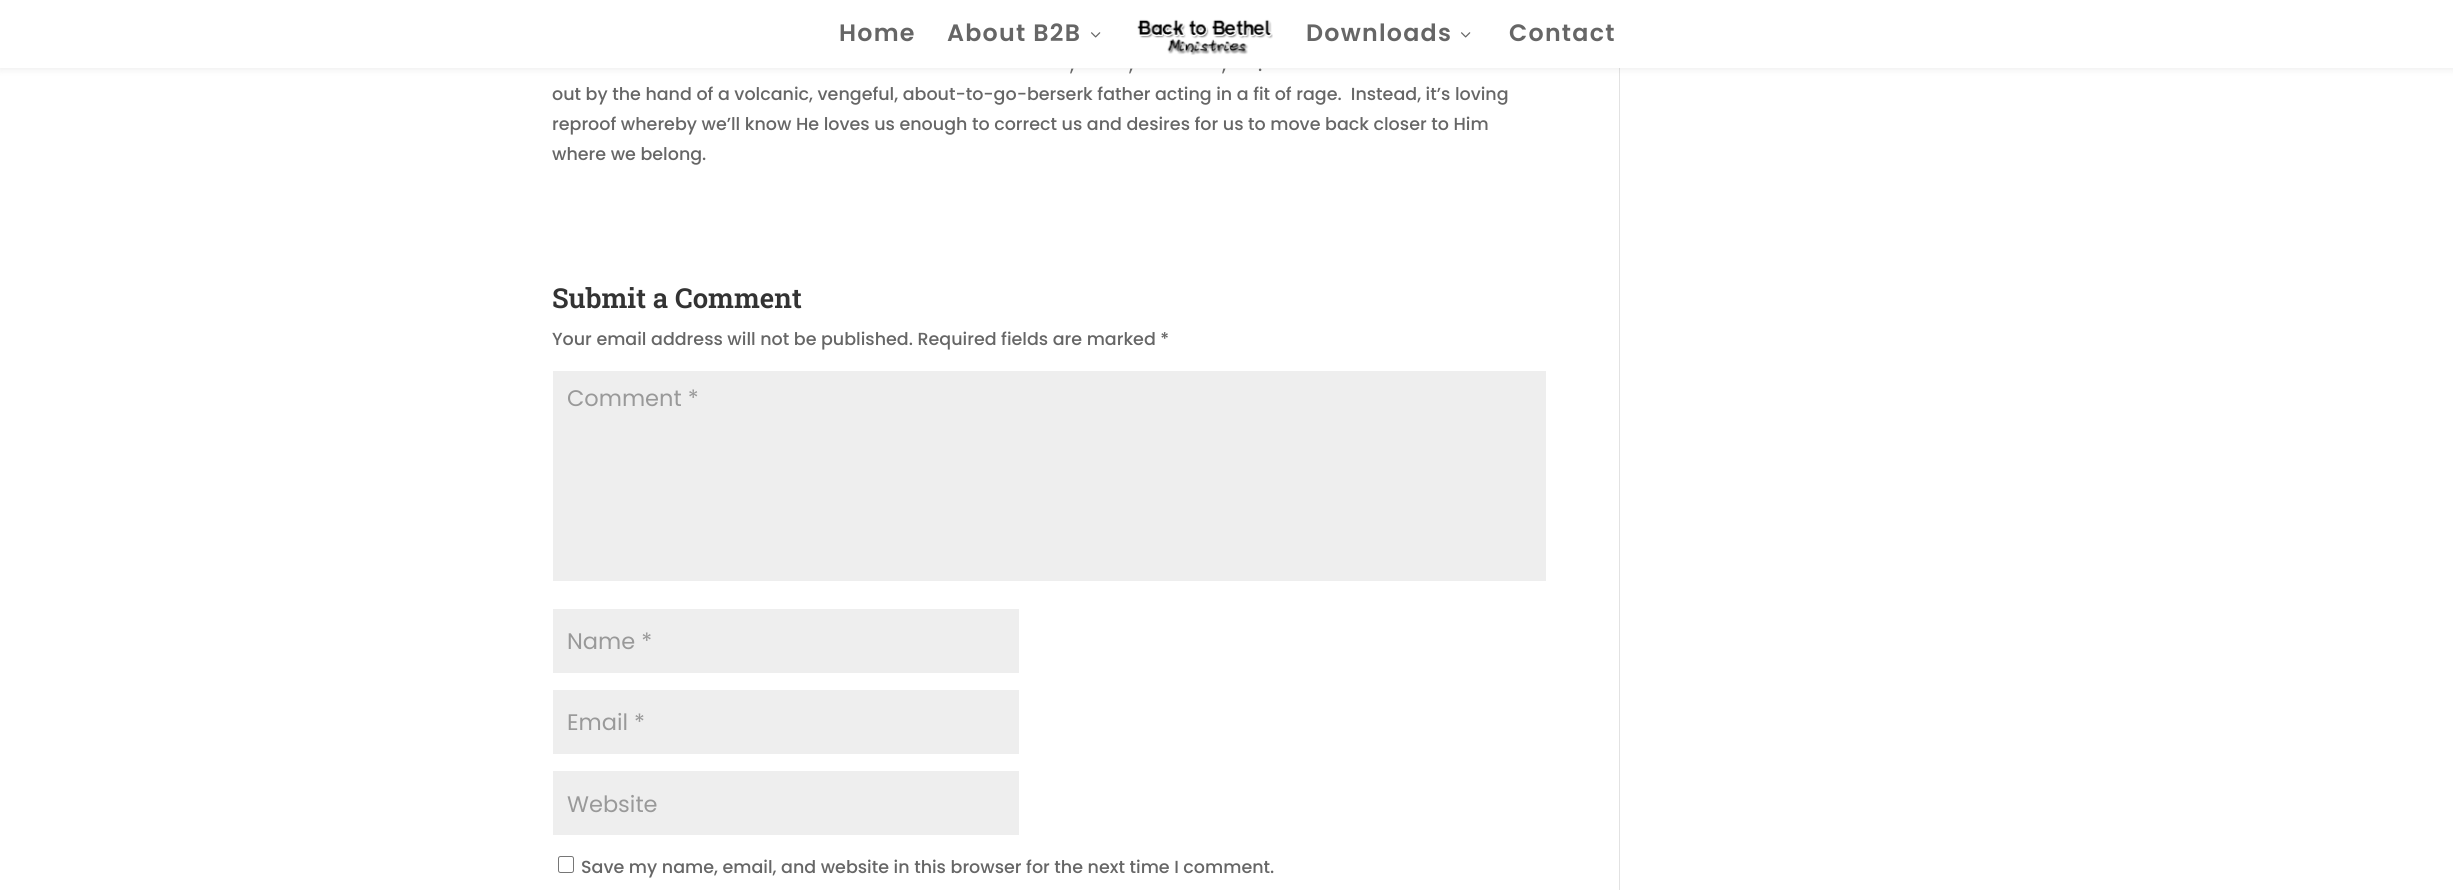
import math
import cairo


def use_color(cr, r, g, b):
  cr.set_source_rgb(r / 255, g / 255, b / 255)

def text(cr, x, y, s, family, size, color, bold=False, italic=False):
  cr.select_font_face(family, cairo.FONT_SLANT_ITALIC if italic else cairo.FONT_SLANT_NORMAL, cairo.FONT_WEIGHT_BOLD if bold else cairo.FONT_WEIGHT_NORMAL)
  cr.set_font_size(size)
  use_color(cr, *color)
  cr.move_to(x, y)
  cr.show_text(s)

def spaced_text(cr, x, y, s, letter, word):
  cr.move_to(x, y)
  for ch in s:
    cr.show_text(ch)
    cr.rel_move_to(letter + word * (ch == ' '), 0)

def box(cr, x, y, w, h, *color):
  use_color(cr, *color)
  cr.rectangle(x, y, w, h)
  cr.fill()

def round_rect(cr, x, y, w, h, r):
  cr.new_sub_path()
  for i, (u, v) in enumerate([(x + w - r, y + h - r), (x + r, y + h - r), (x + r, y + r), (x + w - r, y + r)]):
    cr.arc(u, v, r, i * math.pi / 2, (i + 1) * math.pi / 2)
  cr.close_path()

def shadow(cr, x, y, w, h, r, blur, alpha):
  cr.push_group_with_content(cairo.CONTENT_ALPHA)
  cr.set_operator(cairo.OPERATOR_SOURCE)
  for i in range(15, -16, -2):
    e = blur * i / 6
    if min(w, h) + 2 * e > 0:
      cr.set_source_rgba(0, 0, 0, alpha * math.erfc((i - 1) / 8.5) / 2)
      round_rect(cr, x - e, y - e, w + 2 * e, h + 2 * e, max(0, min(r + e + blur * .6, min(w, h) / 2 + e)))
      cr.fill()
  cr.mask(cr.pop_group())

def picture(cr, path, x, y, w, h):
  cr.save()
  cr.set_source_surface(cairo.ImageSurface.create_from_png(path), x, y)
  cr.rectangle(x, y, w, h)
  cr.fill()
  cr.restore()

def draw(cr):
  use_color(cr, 255, 255, 255)
  cr.paint()
  box(cr, 1619, 68, 1, 822, 226, 226, 226)
  use_color(cr, 0, 0, 0)
  shadow(cr, 0, 0, 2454, 68, 0, 4.5, 0.1)
  box(cr, 0, 0, 2453, 68, 255, 255, 255)
  picture(cr, "img_01.png", 1091, 32, 10, 6)
  picture(cr, "img_02.png", 1137, 19, 136, 36)
  picture(cr, "img_01.png", 1461, 32, 10, 6)
  box(cr, 553, 371, 993, 210, 238, 238, 238)
  box(cr, 553, 609, 466, 64, 238, 238, 238)
  box(cr, 553, 690, 466, 64, 238, 238, 238)
  box(cr, 553, 771, 466, 64, 238, 238, 238)
  round_rect(cr, 558.5, 856.5, 15, 16, 2)
  use_color(cr, 118, 118, 118)
  cr.set_line_width(1)
  cr.stroke()
  cr.select_font_face("Poppins SemiBold")
  cr.set_font_size(23.75)
  use_color(cr, 102, 102, 102)
  spaced_text(cr, 839, 41, "Home", 1.25, 0)
  spaced_text(cr, 947, 41, "About B2B", 1.25, 0)
  spaced_text(cr, 1306, 41, "Downloads", 1.25, 0)
  spaced_text(cr, 1509, 41, "Contact", 1.25, 0)
  text(cr, 1070, 71, ",", "Poppins Medium", 17.5, (102, 102, 102))
  text(cr, 1129, 71, ",", "Poppins Medium", 17.5, (102, 102, 102))
  text(cr, 1222, 71, ",", "Poppins Medium", 17.5, (102, 102, 102))
  text(cr, 1258, 71, ".", "Poppins Medium", 17.5, (102, 102, 102))
  text(cr, 552, 100, "out by the hand of a volcanic, vengeful, about-to-go-berserk father acting in a fit of rage.  Instead, it’s loving", "Poppins Medium", 17.5, (102, 102, 102))
  text(cr, 552, 130, "reproof whereby we’ll know He loves us enough to correct us and desires for us to move back closer to Him", "Poppins Medium", 17.5, (102, 102, 102))
  text(cr, 552, 160, "where we belong.", "Poppins Medium", 17.5, (102, 102, 102))
  text(cr, 552, 308, "Submit a Comment", "Roboto Slab SemiBold", 27.5, (51, 51, 51))
  text(cr, 552, 345, "Your email address will not be published. Required fields are marked *", "Poppins Medium", 17.5, (102, 102, 102))
  text(cr, 567, 406, "Comment *", "Poppins", 22.5, (153, 153, 153))
  text(cr, 567, 649, "Name *", "Poppins", 22.5, (153, 153, 153))
  text(cr, 567, 730, "Email *", "Poppins", 22.5, (153, 153, 153))
  text(cr, 567, 812, "Website", "Poppins", 22.5, (153, 153, 153))
  text(cr, 581, 873, "Save my name, email, and website in this browser for the next time I comment.", "Poppins Medium", 17.5, (102, 102, 102))


surface = cairo.ImageSurface(cairo.FORMAT_RGB24, 2453, 890)
cr = cairo.Context(surface)
options = cairo.FontOptions()
options.set_hint_metrics(cairo.HINT_METRICS_OFF)
options.set_hint_style(cairo.HINT_STYLE_NONE)
cr.set_font_options(options)
cr.set_miter_limit(4)
draw(cr)
surface.write_to_png("out.png")
